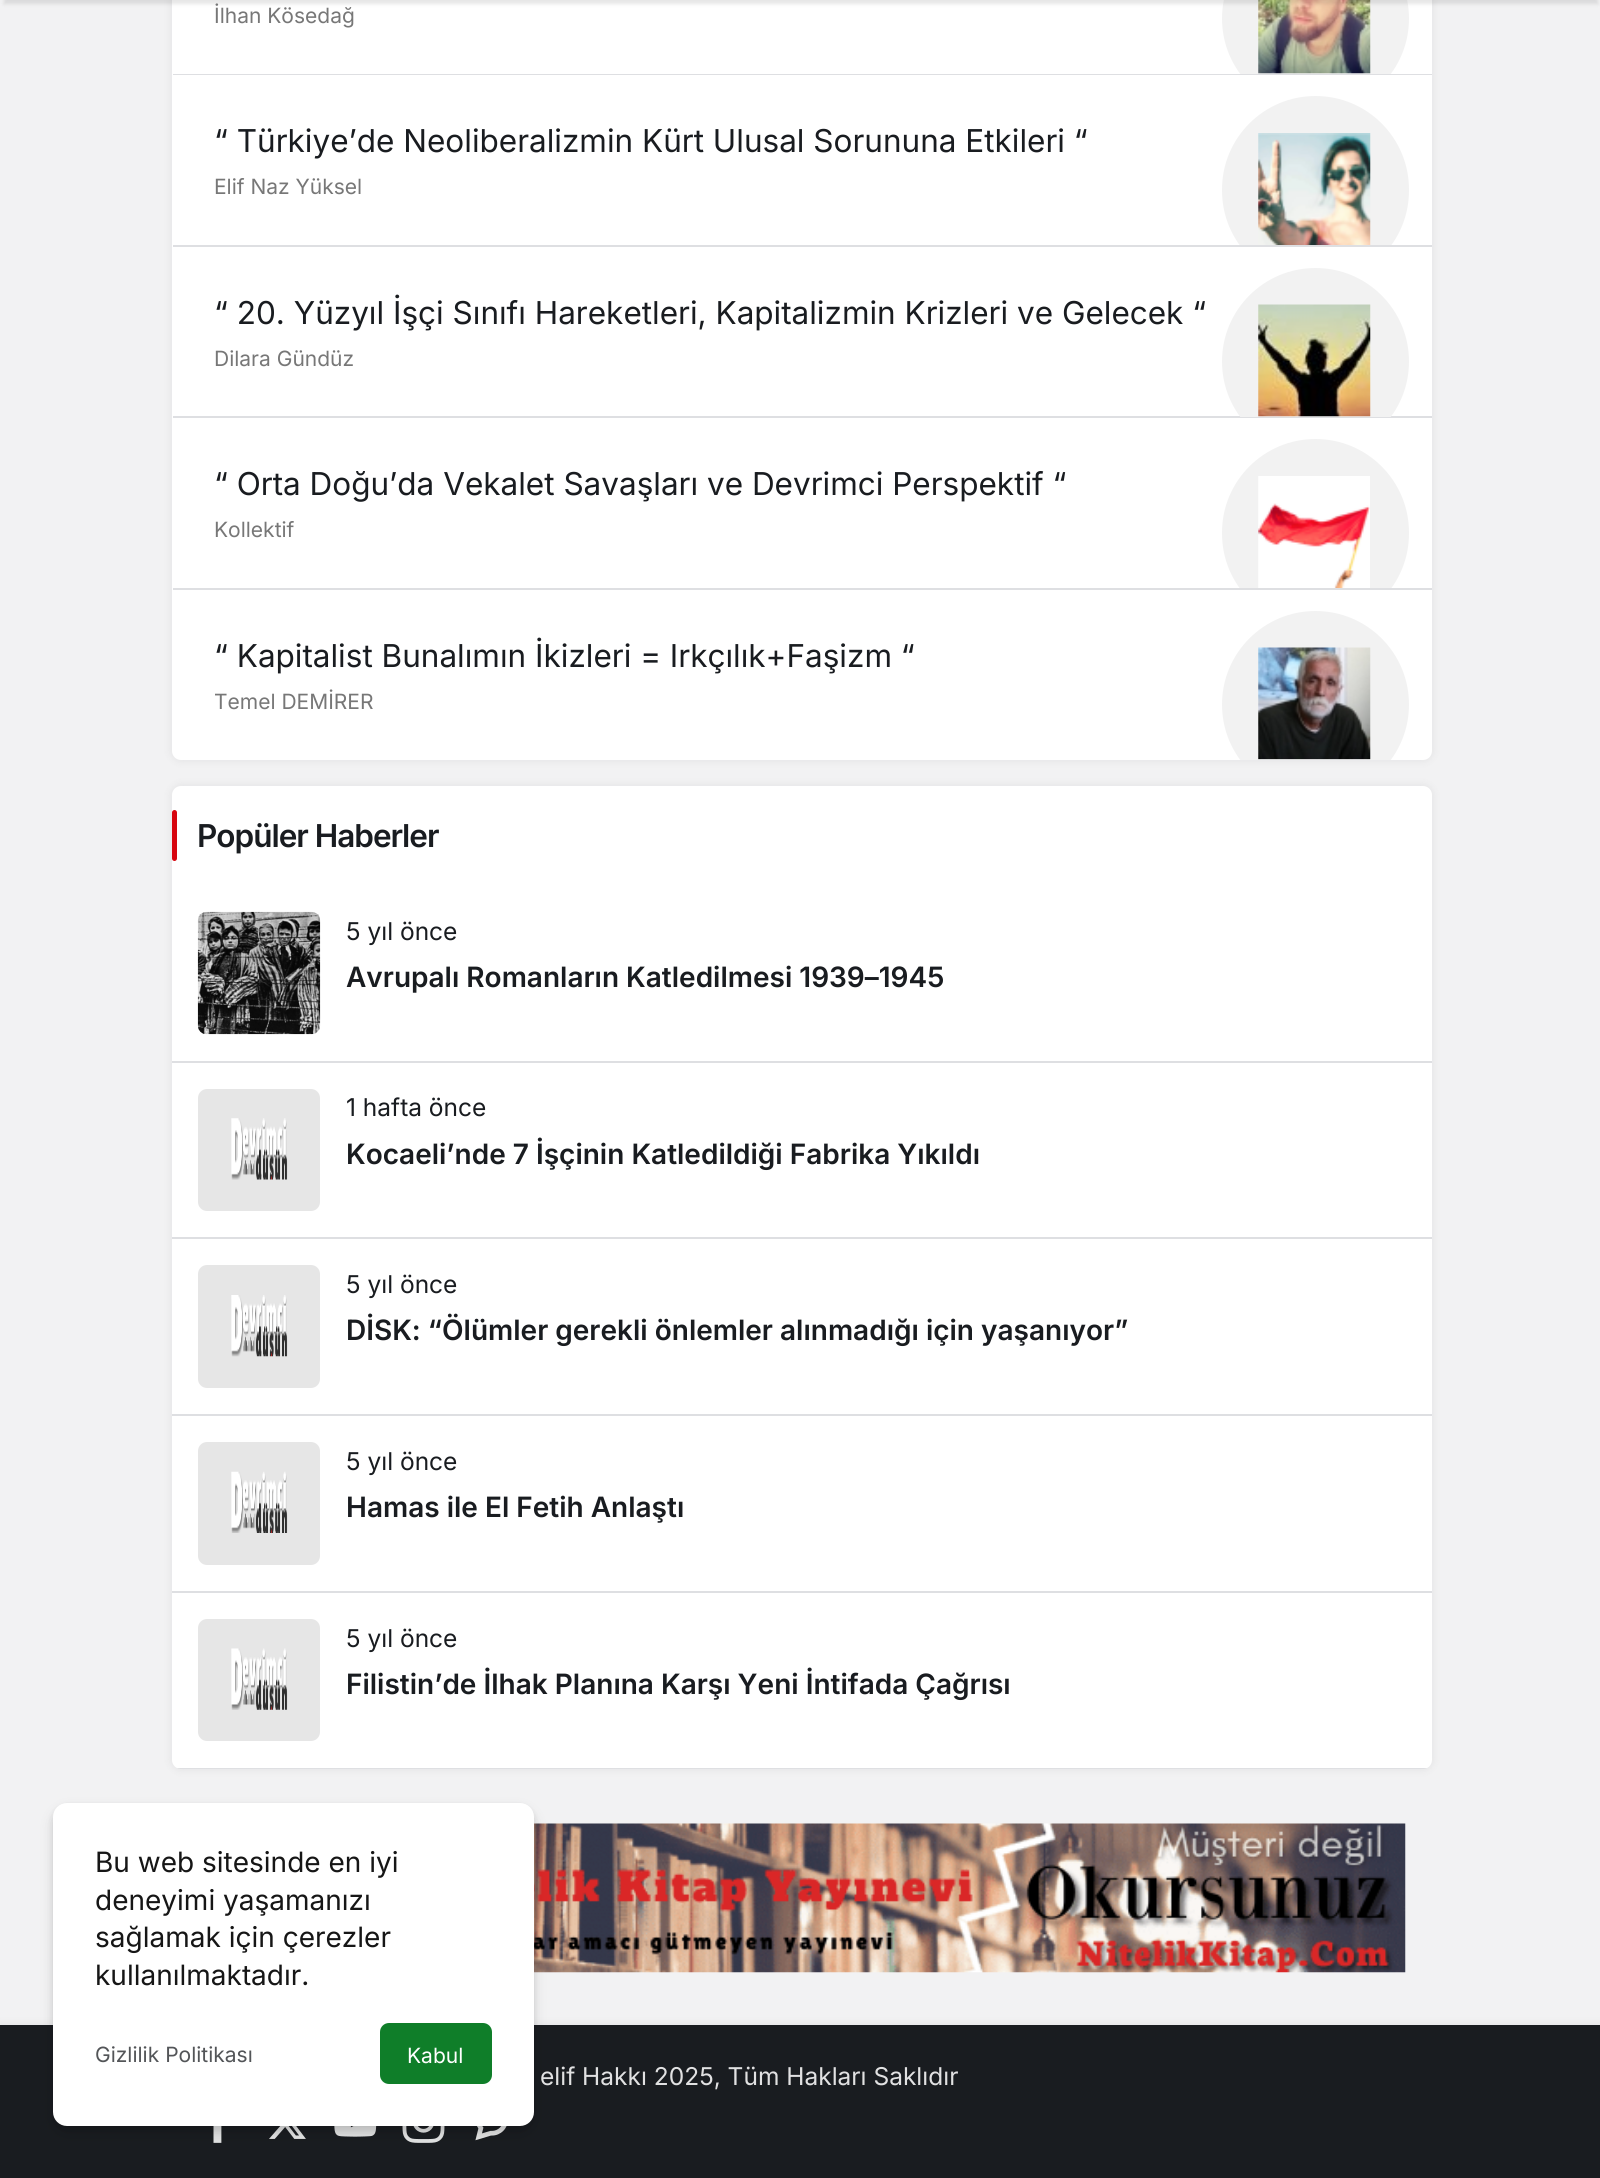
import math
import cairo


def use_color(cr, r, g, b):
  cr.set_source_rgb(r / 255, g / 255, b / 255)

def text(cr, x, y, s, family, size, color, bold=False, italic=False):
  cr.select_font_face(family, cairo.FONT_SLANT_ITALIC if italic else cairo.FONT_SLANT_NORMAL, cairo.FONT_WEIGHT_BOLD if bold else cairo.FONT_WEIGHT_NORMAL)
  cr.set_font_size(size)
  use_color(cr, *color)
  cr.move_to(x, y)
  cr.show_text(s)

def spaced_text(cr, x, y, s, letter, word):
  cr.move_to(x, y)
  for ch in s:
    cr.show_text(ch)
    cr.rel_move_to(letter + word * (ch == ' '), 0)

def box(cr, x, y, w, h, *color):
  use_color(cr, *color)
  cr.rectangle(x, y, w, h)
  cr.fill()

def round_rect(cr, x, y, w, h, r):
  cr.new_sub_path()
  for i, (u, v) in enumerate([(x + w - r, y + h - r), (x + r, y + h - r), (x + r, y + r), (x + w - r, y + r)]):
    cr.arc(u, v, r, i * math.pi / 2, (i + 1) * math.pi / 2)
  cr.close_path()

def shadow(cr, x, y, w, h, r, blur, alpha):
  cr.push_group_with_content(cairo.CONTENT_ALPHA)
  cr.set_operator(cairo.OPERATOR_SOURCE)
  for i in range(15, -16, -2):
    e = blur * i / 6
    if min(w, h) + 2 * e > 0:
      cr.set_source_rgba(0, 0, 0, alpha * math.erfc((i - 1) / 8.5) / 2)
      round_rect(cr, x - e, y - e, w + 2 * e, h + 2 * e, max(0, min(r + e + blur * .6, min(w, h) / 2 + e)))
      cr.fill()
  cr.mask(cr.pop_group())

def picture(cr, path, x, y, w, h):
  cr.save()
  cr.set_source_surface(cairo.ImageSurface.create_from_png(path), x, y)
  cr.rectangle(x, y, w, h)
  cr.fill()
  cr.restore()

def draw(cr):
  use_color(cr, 242, 242, 243)
  cr.paint()
  use_color(cr, 50, 53, 61)
  shadow(cr, 172, -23, 1260, 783, 9, 4.5, 0.1)
  use_color(cr, 255, 255, 255)
  round_rect(cr, 172, -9, 1260, 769, 9)
  cr.fill()
  use_color(cr, 222, 223, 226)
  cr.new_path()
  cr.move_to(173, 74)
  cr.line_to(173, 75)
  cr.line_to(1432, 75)
  cr.line_to(1432, -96)
  cr.line_to(1432, 74)
  cr.close_path()
  cr.fill()
  cr.save()
  cr.rectangle(172, 0, 1260, 74)
  cr.clip()
  use_color(cr, 242, 242, 242)
  cr.arc(1315.5, 18.5, 93.5, 0, 2 * math.pi)
  cr.fill()
  cr.restore()
  picture(cr, "img_01.png", 1258, 0, 113, 74)
  use_color(cr, 0, 0, 0)
  shadow(cr, 4, -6, 1594, 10, 0, 2, 0.1)
  use_color(cr, 222, 223, 226)
  cr.new_path()
  cr.move_to(173, 245)
  cr.line_to(173, 247)
  cr.line_to(1432, 247)
  cr.line_to(1432, 75)
  cr.line_to(1432, 245)
  cr.close_path()
  cr.fill()
  cr.save()
  cr.rectangle(172, 74, 1260, 171)
  cr.clip()
  use_color(cr, 242, 242, 242)
  round_rect(cr, 1222, 96, 187, 188, 93.5)
  cr.fill()
  cr.restore()
  picture(cr, "img_02.png", 1258, 133, 113, 112)
  cr.new_path()
  cr.move_to(173, 416)
  cr.line_to(173, 418)
  cr.line_to(1432, 418)
  cr.line_to(1432, 247)
  cr.line_to(1432, 416)
  cr.close_path()
  cr.fill()
  cr.save()
  cr.rectangle(172, 245, 1260, 172)
  cr.clip()
  use_color(cr, 242, 242, 242)
  cr.arc(1315.5, 361.5, 93.5, 0, 2 * math.pi)
  cr.fill()
  cr.restore()
  picture(cr, "img_03.png", 1258, 304, 113, 113)
  cr.new_path()
  cr.move_to(173, 588)
  cr.line_to(173, 590)
  cr.line_to(1432, 590)
  cr.line_to(1432, 418)
  cr.line_to(1432, 588)
  cr.close_path()
  cr.fill()
  cr.save()
  cr.rectangle(172, 417, 1260, 171)
  cr.clip()
  use_color(cr, 242, 242, 242)
  round_rect(cr, 1222, 439, 187, 188, 93.5)
  cr.fill()
  cr.restore()
  picture(cr, "img_04.png", 1258, 476, 112, 112)
  use_color(cr, 50, 53, 61)
  shadow(cr, 172, 786, 1260, 983, 9, 4.5, 0.1)
  use_color(cr, 255, 255, 255)
  round_rect(cr, 172, 786, 1260, 983, 9)
  cr.fill()
  cr.save()
  cr.rectangle(172, 588, 1260, 172)
  cr.clip()
  use_color(cr, 242, 242, 242)
  cr.arc(1315.5, 704.5, 93.5, 0, 2 * math.pi)
  cr.fill()
  cr.restore()
  picture(cr, "img_05.png", 1258, 647, 113, 113)
  use_color(cr, 215, 5, 15)
  round_rect(cr, 172, 810, 5, 51, 2.5)
  cr.fill()
  box(cr, 172, 1061, 1260, 2, 222, 223, 226)
  picture(cr, "img_06.png", 197, 911, 124, 124)
  box(cr, 172, 1237, 1260, 2, 222, 223, 226)
  use_color(cr, 230, 230, 230)
  round_rect(cr, 198, 1089, 122, 122, 9)
  cr.fill()
  picture(cr, "img_07.png", 231, 1118, 57, 62)
  box(cr, 172, 1414, 1260, 2, 222, 223, 226)
  use_color(cr, 230, 230, 230)
  round_rect(cr, 198, 1265, 122, 123, 9)
  cr.fill()
  picture(cr, "img_08.png", 231, 1295, 57, 62)
  box(cr, 172, 1591, 1260, 2, 222, 223, 226)
  use_color(cr, 230, 230, 230)
  round_rect(cr, 198, 1442, 122, 123, 9)
  cr.fill()
  picture(cr, "img_09.png", 231, 1471, 57, 62)
  cr.save()
  round_rect(cr, 172, 786, 1260, 983, 9)
  cr.clip()
  cr.set_source_rgba(0.357, 0.38, 0.431, 0.2)
  cr.rectangle(172, 1768, 1260, 1)
  cr.fill()
  cr.restore()
  round_rect(cr, 198, 1619, 122, 122, 9)
  cr.fill()
  picture(cr, "img_10.png", 231, 1648, 57, 62)
  picture(cr, "img_11.png", 534, 1823, 872, 150)
  use_color(cr, 50, 53, 61)
  shadow(cr, 0, 2025, 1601, 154, 0, 4.5, 0.1)
  box(cr, 0, 2025, 1600, 153, 25, 28, 32)
  picture(cr, "img_12.png", 213, 2126, 9, 17)
  picture(cr, "img_13.png", 269, 2126, 37, 13)
  picture(cr, "img_14.png", 334, 2126, 43, 11)
  picture(cr, "img_15.png", 402, 2126, 43, 17)
  picture(cr, "img_16.png", 475, 2126, 32, 15)
  use_color(cr, 0, 0, 0)
  shadow(cr, 53, 1806, 481, 324, 14, 3.5, 0.08)
  shadow(cr, 53, 1810, 481, 323, 14, 7, 0.12)
  use_color(cr, 255, 255, 255)
  round_rect(cr, 53, 1803, 481, 323, 14)
  cr.fill()
  use_color(cr, 15, 126, 41)
  round_rect(cr, 380, 2023, 112, 61, 9)
  cr.fill()
  text(cr, 214, 23, "İlhan Kösedağ", "Inter", 21, (119, 119, 119))
  text(cr, 214, 152, "“ Türkiye’de Neoliberalizmin Kürt Ulusal Sorununa Etkileri “", "Inter", 31.5, (25, 28, 32))
  text(cr, 214, 194, "Elif Naz Yüksel", "Inter", 21, (119, 119, 119))
  text(cr, 214, 324, "“ 20. Yüzyıl İşçi Sınıfı Hareketleri, Kapitalizmin Krizleri ve Gelecek “", "Inter", 31.5, (25, 28, 32))
  text(cr, 214, 366, "Dilara Gündüz", "Inter", 21, (119, 119, 119))
  text(cr, 214, 495, "“ Orta Doğu’da Vekalet Savaşları ve Devrimci Perspektif “", "Inter", 31.5, (25, 28, 32))
  text(cr, 214, 537, "Kollektif", "Inter", 21, (119, 119, 119))
  text(cr, 214, 667, "“ Kapitalist Bunalımın İkizleri = Irkçılık+Faşizm “", "Inter", 31.5, (25, 28, 32))
  text(cr, 214, 709, "Temel DEMİRER", "Inter", 21, (119, 119, 119))
  cr.select_font_face("Inter SemiBold")
  cr.set_font_size(31.5)
  use_color(cr, 25, 28, 32)
  spaced_text(cr, 197, 847, "Popüler Haberler", -1, 0)
  text(cr, 346, 940, "5 yıl önce", "Inter", 24.5, (25, 28, 32))
  text(cr, 346, 987, "Avrupalı Romanların Katledilmesi 1939–1945", "Inter SemiBold", 28, (25, 28, 32))
  text(cr, 346, 1116, "1 hafta önce", "Inter", 24.5, (25, 28, 32))
  text(cr, 346, 1164, "Kocaeli’nde 7 İşçinin Katledildiği Fabrika Yıkıldı", "Inter SemiBold", 28, (25, 28, 32))
  text(cr, 346, 1293, "5 yıl önce", "Inter", 24.5, (25, 28, 32))
  text(cr, 346, 1340, "DİSK: “Ölümler gerekli önlemler alınmadığı için yaşanıyor”", "Inter SemiBold", 28, (25, 28, 32))
  text(cr, 346, 1470, "5 yıl önce", "Inter", 24.5, (25, 28, 32))
  text(cr, 346, 1517, "Hamas ile El Fetih Anlaştı", "Inter SemiBold", 28, (25, 28, 32))
  text(cr, 346, 1647, "5 yıl önce", "Inter", 24.5, (25, 28, 32))
  text(cr, 346, 1694, "Filistin’de İlhak Planına Karşı Yeni İntifada Çağrısı", "Inter SemiBold", 28, (25, 28, 32))
  text(cr, 95, 1872, "Bu web sitesinde en iyi", "Inter", 28, (22, 22, 22))
  text(cr, 95, 1910, "deneyimi yaşamanızı", "Inter", 28, (22, 22, 22))
  text(cr, 95, 1947, "sağlamak için çerezler", "Inter", 28, (22, 22, 22))
  text(cr, 95, 1985, "kullanılmaktadır.", "Inter", 28, (22, 22, 22))
  text(cr, 95, 2062, "Gizlilik Politikası", "Inter", 21, (83, 85, 88))
  text(cr, 407, 2063, "Kabul", "Inter", 21, (255, 255, 255))
  text(cr, 540, 2085, "elif Hakkı 2025, Tüm Hakları Saklıdır", "Inter", 24.5, (225, 225, 226))


surface = cairo.ImageSurface(cairo.FORMAT_RGB24, 1600, 2178)
cr = cairo.Context(surface)
options = cairo.FontOptions()
options.set_hint_metrics(cairo.HINT_METRICS_OFF)
options.set_hint_style(cairo.HINT_STYLE_NONE)
cr.set_font_options(options)
cr.set_miter_limit(4)
draw(cr)
surface.write_to_png("out.png")
